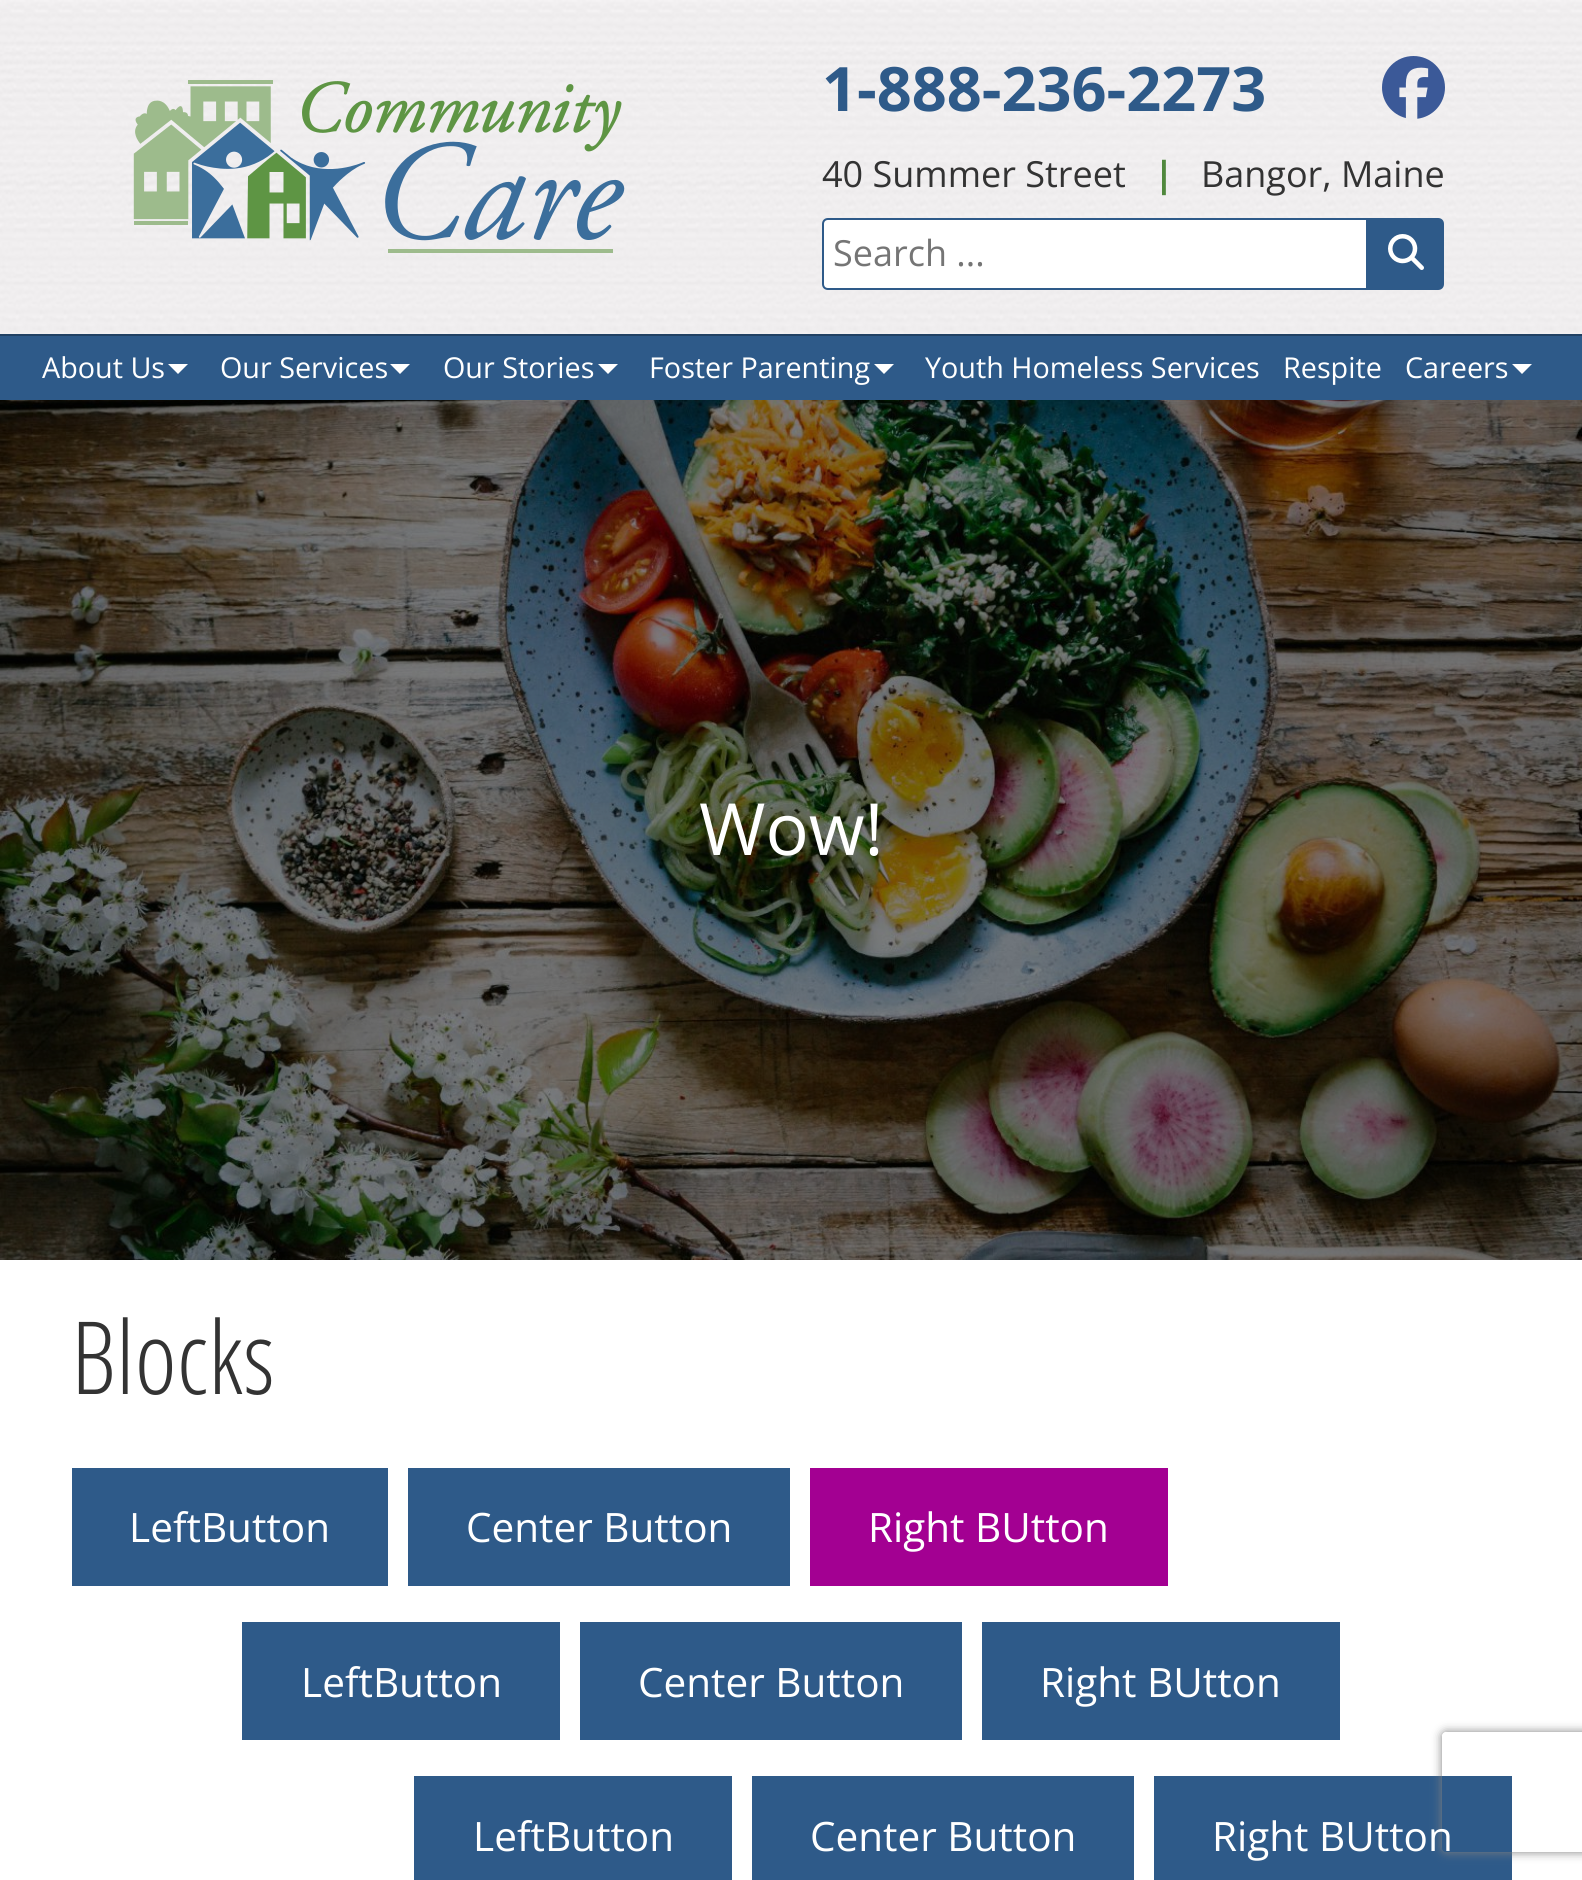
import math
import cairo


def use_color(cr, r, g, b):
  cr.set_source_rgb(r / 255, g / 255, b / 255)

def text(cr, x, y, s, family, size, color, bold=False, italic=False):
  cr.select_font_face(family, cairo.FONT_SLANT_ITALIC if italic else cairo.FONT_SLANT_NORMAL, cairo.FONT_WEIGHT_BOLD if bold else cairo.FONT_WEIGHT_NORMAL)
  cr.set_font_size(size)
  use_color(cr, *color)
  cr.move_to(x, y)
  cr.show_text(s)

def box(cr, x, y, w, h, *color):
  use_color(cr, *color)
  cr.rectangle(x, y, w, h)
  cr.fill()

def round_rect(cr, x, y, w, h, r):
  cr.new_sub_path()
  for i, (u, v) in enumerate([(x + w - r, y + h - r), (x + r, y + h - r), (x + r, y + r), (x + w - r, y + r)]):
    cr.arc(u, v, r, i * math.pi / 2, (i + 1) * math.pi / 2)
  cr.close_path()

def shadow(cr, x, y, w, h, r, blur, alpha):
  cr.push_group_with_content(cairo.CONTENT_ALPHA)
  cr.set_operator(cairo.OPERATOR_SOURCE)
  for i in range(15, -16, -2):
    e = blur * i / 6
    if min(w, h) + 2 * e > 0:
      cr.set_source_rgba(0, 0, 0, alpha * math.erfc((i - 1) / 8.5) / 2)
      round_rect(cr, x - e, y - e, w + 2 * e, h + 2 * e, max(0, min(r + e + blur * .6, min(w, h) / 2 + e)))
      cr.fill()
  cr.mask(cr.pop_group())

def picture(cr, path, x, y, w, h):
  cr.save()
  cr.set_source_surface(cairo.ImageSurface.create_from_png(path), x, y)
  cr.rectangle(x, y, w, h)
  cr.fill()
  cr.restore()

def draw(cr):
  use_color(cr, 255, 255, 255)
  cr.paint()
  picture(cr, "img_01.png", 0, 0, 1582, 334)
  picture(cr, "img_02.png", 133, 80, 492, 173)
  picture(cr, "img_03.png", 1382, 56, 63, 63)
  use_color(cr, 255, 255, 255)
  cr.new_path()
  cr.move_to(828, 219)
  cr.line_to(1367, 219)
  cr.line_to(1367, 289)
  cr.line_to(828, 289)
  cr.curve_to(825, 289, 823, 287, 823, 284)
  cr.line_to(823, 224)
  cr.curve_to(823, 221, 825, 219, 828, 219)
  cr.close_path()
  cr.fill_preserve()
  use_color(cr, 46, 90, 137)
  cr.stroke()
  cr.new_path()
  cr.move_to(1369, 219)
  cr.line_to(1438, 219)
  cr.curve_to(1441, 219, 1443, 221, 1443, 224)
  cr.line_to(1443, 284)
  cr.curve_to(1443, 287, 1441, 289, 1438, 289)
  cr.line_to(1369, 289)
  cr.close_path()
  cr.fill_preserve()
  cr.stroke()
  picture(cr, "img_04.png", 1388, 234, 36, 36)
  box(cr, 0, 336, 1582, 64, 46, 90, 137)
  box(cr, 0, 334, 1582, 2, 33, 65, 99)
  use_color(cr, 255, 255, 255)
  cr.new_path()
  cr.move_to(168, 364)
  cr.line_to(188, 364)
  cr.line_to(178, 374)
  cr.close_path()
  cr.fill()
  cr.new_path()
  cr.move_to(390, 364)
  cr.line_to(410, 364)
  cr.line_to(400, 374)
  cr.close_path()
  cr.fill()
  cr.new_path()
  cr.move_to(598, 364)
  cr.line_to(618, 364)
  cr.line_to(608, 374)
  cr.close_path()
  cr.fill()
  cr.new_path()
  cr.move_to(874, 364)
  cr.line_to(894, 364)
  cr.line_to(884, 374)
  cr.close_path()
  cr.fill()
  cr.new_path()
  cr.move_to(1512, 364)
  cr.line_to(1532, 364)
  cr.line_to(1522, 374)
  cr.close_path()
  cr.fill()
  picture(cr, "img_05.png", 0, 400, 1582, 860)
  box(cr, 72, 1468, 316, 118, 46, 90, 137)
  box(cr, 408, 1468, 382, 118, 46, 90, 137)
  box(cr, 810, 1468, 358, 118, 163, 0, 146)
  box(cr, 242, 1622, 318, 118, 46, 90, 137)
  box(cr, 580, 1622, 382, 118, 46, 90, 137)
  box(cr, 982, 1622, 358, 118, 46, 90, 137)
  box(cr, 414, 1776, 318, 104, 46, 90, 137)
  box(cr, 752, 1776, 382, 104, 46, 90, 137)
  box(cr, 1154, 1776, 358, 104, 46, 90, 137)
  cr.save()
  cr.set_fill_rule(cairo.FILL_RULE_EVEN_ODD)
  cr.new_path()
  cr.move_to(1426, 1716)
  cr.line_to(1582, 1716)
  cr.line_to(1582, 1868)
  cr.line_to(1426, 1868)
  cr.close_path()
  cr.move_to(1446, 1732)
  cr.line_to(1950, 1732)
  cr.curve_to(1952, 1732, 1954, 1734, 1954, 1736)
  cr.line_to(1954, 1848)
  cr.curve_to(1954, 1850, 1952, 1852, 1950, 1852)
  cr.line_to(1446, 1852)
  cr.curve_to(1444, 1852, 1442, 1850, 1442, 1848)
  cr.line_to(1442, 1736)
  cr.curve_to(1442, 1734, 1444, 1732, 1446, 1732)
  cr.close_path()
  cr.clip()
  use_color(cr, 128, 128, 128)
  shadow(cr, 1442, 1732, 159, 120, 4, 5, 1)
  cr.restore()
  text(cr, 822, 111, "1-888-236-2273", "Open Sans", 61.25, (46, 90, 137), bold=True)
  text(cr, 822, 187, "40 Summer Street", "Open Sans", 36, (51, 51, 51))
  text(cr, 1154, 187, "|", "Open Sans", 36, (80, 136, 61), bold=True)
  text(cr, 1201, 187, "Bangor, Maine", "Open Sans", 36, (51, 51, 51))
  text(cr, 833, 266, "Search ...", "Open Sans", 36, (117, 117, 117))
  text(cr, 42, 378, "About Us", "Open Sans", 28.75, (255, 255, 255))
  text(cr, 220, 378, "Our Services", "Open Sans", 28.75, (255, 255, 255))
  text(cr, 443, 378, "Our Stories", "Open Sans", 28.75, (255, 255, 255))
  text(cr, 649, 378, "Foster Parenting", "Open Sans", 28.75, (255, 255, 255))
  text(cr, 925, 378, "Youth Homeless Services", "Open Sans", 28.75, (255, 255, 255))
  text(cr, 1283, 378, "Respite", "Open Sans", 28.75, (255, 255, 255))
  text(cr, 1405, 378, "Careers", "Open Sans", 28.75, (255, 255, 255))
  text(cr, 699, 855, "Wow!", "Open Sans", 72, (255, 255, 255))
  text(cr, 71, 1394, "Blocks", "Open Sans Condensed Light", 101, (51, 51, 51))
  text(cr, 129, 1542, "LeftButton", "Open Sans", 40.5, (255, 255, 255))
  text(cr, 466, 1542, "Center Button", "Open Sans", 40.5, (255, 255, 255))
  text(cr, 868, 1542, "Right BUtton", "Open Sans", 40.5, (255, 255, 255))
  text(cr, 301, 1697, "LeftButton", "Open Sans", 40.5, (255, 255, 255))
  text(cr, 638, 1697, "Center Button", "Open Sans", 40.5, (255, 255, 255))
  text(cr, 1040, 1697, "Right BUtton", "Open Sans", 40.5, (255, 255, 255))
  text(cr, 473, 1851, "LeftButton", "Open Sans", 40.5, (255, 255, 255))
  text(cr, 810, 1851, "Center Button", "Open Sans", 40.5, (255, 255, 255))
  text(cr, 1212, 1851, "Right BUtton", "Open Sans", 40.5, (255, 255, 255))


surface = cairo.ImageSurface(cairo.FORMAT_RGB24, 1582, 1880)
cr = cairo.Context(surface)
options = cairo.FontOptions()
options.set_hint_metrics(cairo.HINT_METRICS_OFF)
options.set_hint_style(cairo.HINT_STYLE_NONE)
cr.set_font_options(options)
cr.set_miter_limit(4)
draw(cr)
surface.write_to_png("out.png")
